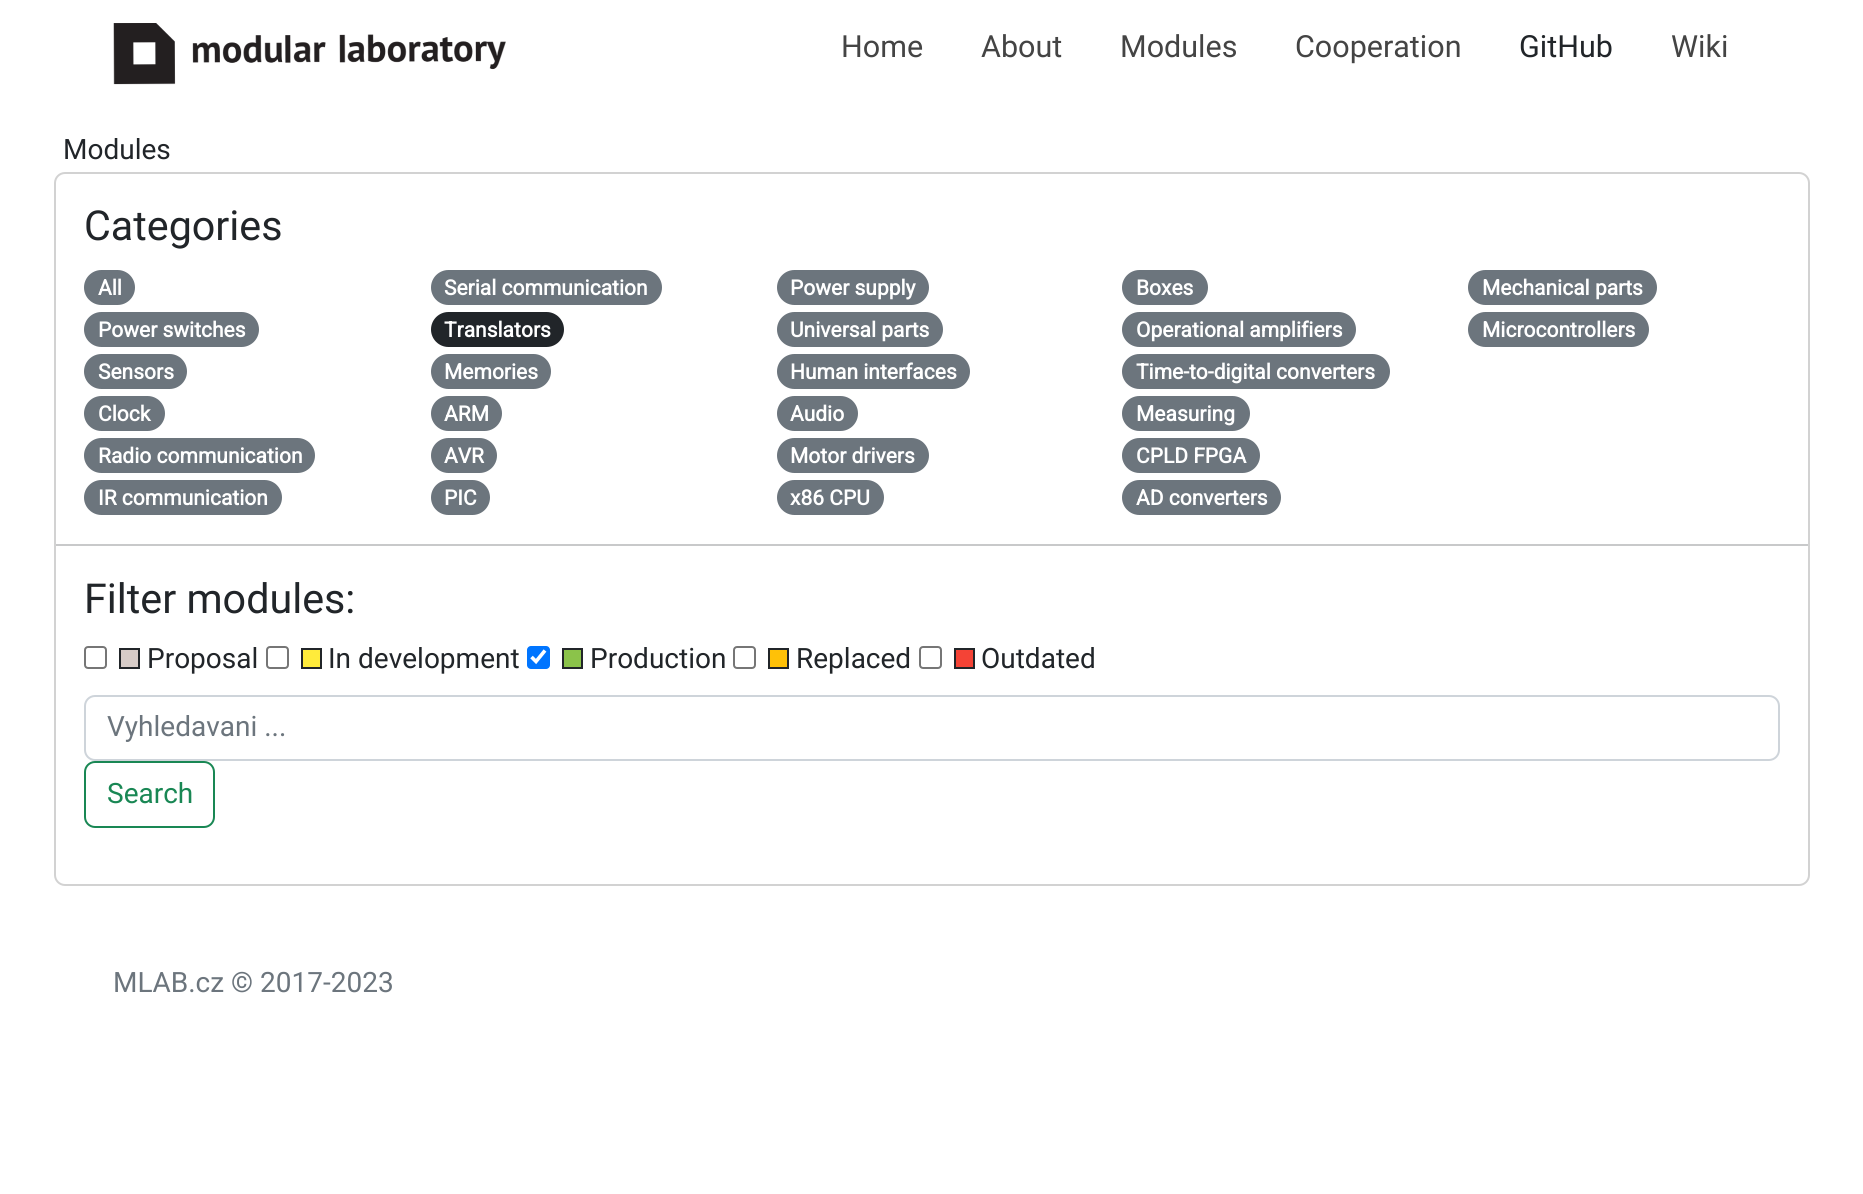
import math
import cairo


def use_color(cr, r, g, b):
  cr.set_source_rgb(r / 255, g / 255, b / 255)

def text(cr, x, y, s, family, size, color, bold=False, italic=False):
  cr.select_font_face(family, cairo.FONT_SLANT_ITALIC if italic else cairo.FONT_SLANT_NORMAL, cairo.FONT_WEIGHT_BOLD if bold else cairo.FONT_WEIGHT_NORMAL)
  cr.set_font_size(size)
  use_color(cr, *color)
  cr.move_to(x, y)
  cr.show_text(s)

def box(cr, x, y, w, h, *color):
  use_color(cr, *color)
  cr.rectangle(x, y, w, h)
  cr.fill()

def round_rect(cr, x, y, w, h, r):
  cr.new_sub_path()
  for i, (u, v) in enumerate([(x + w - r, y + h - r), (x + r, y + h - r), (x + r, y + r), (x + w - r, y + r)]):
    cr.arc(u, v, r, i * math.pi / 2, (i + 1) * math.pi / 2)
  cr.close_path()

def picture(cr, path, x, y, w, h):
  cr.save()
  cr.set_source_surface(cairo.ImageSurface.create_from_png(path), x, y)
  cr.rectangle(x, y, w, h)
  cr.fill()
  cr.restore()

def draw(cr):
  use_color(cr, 255, 255, 255)
  cr.paint()
  picture(cr, "img_01.png", 113, 23, 393, 62)
  round_rect(cr, 55, 173, 1754, 712, 10)
  use_color(cr, 210, 210, 210)
  cr.stroke()
  use_color(cr, 108, 117, 125)
  round_rect(cr, 84, 270, 51, 35, 17.5)
  cr.fill()
  round_rect(cr, 431, 270, 231, 35, 17.5)
  cr.fill()
  round_rect(cr, 777, 270, 152, 35, 17.5)
  cr.fill()
  round_rect(cr, 1122, 270, 86, 35, 17.5)
  cr.fill()
  round_rect(cr, 1468, 270, 189, 35, 17.5)
  cr.fill()
  round_rect(cr, 84, 312, 175, 35, 17.5)
  cr.fill()
  use_color(cr, 33, 37, 41)
  round_rect(cr, 431, 312, 133, 35, 17.5)
  cr.fill()
  use_color(cr, 108, 117, 125)
  round_rect(cr, 777, 312, 166, 35, 17.5)
  cr.fill()
  round_rect(cr, 1122, 312, 234, 35, 17.5)
  cr.fill()
  round_rect(cr, 1468, 312, 181, 35, 17.5)
  cr.fill()
  round_rect(cr, 84, 354, 103, 35, 17.5)
  cr.fill()
  round_rect(cr, 431, 354, 120, 35, 17.5)
  cr.fill()
  round_rect(cr, 777, 354, 193, 35, 17.5)
  cr.fill()
  round_rect(cr, 1122, 354, 268, 35, 17.5)
  cr.fill()
  round_rect(cr, 84, 396, 81, 35, 17.5)
  cr.fill()
  round_rect(cr, 431, 396, 71, 35, 17.5)
  cr.fill()
  round_rect(cr, 777, 396, 81, 35, 17.5)
  cr.fill()
  round_rect(cr, 1122, 396, 128, 35, 17.5)
  cr.fill()
  round_rect(cr, 84, 438, 231, 35, 17.5)
  cr.fill()
  round_rect(cr, 431, 438, 66, 35, 17.5)
  cr.fill()
  round_rect(cr, 777, 438, 152, 35, 17.5)
  cr.fill()
  round_rect(cr, 1122, 438, 138, 35, 17.5)
  cr.fill()
  round_rect(cr, 84, 480, 198, 35, 17.5)
  cr.fill()
  round_rect(cr, 431, 480, 59, 35, 17.5)
  cr.fill()
  round_rect(cr, 777, 480, 107, 35, 17.5)
  cr.fill()
  round_rect(cr, 1122, 480, 159, 35, 17.5)
  cr.fill()
  box(cr, 56, 544, 1752, 2, 200, 201, 202)
  round_rect(cr, 85, 647, 21, 21, 3)
  use_color(cr, 118, 118, 118)
  cr.stroke()
  use_color(cr, 215, 204, 200)
  cr.rectangle(120, 649, 19, 19)
  cr.fill_preserve()
  use_color(cr, 33, 37, 41)
  cr.stroke()
  round_rect(cr, 267, 647, 21, 21, 3)
  use_color(cr, 118, 118, 118)
  cr.stroke()
  use_color(cr, 255, 235, 59)
  cr.rectangle(302, 649, 19, 19)
  cr.fill_preserve()
  use_color(cr, 33, 37, 41)
  cr.stroke()
  use_color(cr, 0, 117, 255)
  round_rect(cr, 527, 646, 23, 23, 4)
  cr.fill()
  cr.new_path()
  cr.move_to(531.5, 657)
  cr.line_to(536, 661.5)
  cr.line_to(545, 650.5)
  use_color(cr, 255, 255, 255)
  cr.set_line_width(3.6)
  cr.stroke()
  use_color(cr, 139, 195, 74)
  cr.rectangle(563, 649, 19, 19)
  cr.fill_preserve()
  use_color(cr, 33, 37, 41)
  cr.set_line_width(2)
  cr.stroke()
  round_rect(cr, 734, 647, 21, 21, 3)
  use_color(cr, 118, 118, 118)
  cr.stroke()
  use_color(cr, 255, 193, 7)
  cr.rectangle(769, 649, 19, 19)
  cr.fill_preserve()
  use_color(cr, 33, 37, 41)
  cr.stroke()
  round_rect(cr, 920, 647, 21, 21, 3)
  use_color(cr, 118, 118, 118)
  cr.stroke()
  use_color(cr, 244, 67, 54)
  cr.rectangle(955, 649, 19, 19)
  cr.fill_preserve()
  use_color(cr, 33, 37, 41)
  cr.stroke()
  round_rect(cr, 85, 696, 1694, 64, 10)
  use_color(cr, 206, 212, 218)
  cr.stroke()
  round_rect(cr, 85, 762, 129, 65, 10)
  use_color(cr, 25, 135, 84)
  cr.stroke()
  text(cr, 841, 57, "Home", "Roboto", 30.5, (68, 68, 68))
  text(cr, 981, 57, "About", "Roboto", 30.5, (68, 68, 68))
  text(cr, 1120, 57, "Modules", "Roboto", 30.5, (68, 68, 68))
  text(cr, 1295, 57, "Cooperation", "Roboto", 30.5, (68, 68, 68))
  text(cr, 1519, 57, "GitHub", "Roboto", 30.5, (33, 37, 41))
  text(cr, 1671, 57, "Wiki", "Roboto", 30.5, (68, 68, 68))
  text(cr, 63, 159, "Modules", "Roboto", 28, (33, 37, 41))
  text(cr, 84, 240, "Categories", "Roboto", 41.25, (33, 37, 41))
  text(cr, 98, 295, "All", "Roboto", 21, (255, 255, 255), bold=True)
  text(cr, 444, 295, "Serial communication", "Roboto", 21, (255, 255, 255), bold=True)
  text(cr, 790, 295, "Power supply", "Roboto", 21, (255, 255, 255), bold=True)
  text(cr, 1136, 295, "Boxes", "Roboto", 21, (255, 255, 255), bold=True)
  text(cr, 1482, 295, "Mechanical parts", "Roboto", 21, (255, 255, 255), bold=True)
  text(cr, 98, 337, "Power switches", "Roboto", 21, (255, 255, 255), bold=True)
  text(cr, 444, 337, "Translators", "Roboto", 21, (255, 255, 255), bold=True)
  text(cr, 790, 337, "Universal parts", "Roboto", 21, (255, 255, 255), bold=True)
  text(cr, 1136, 337, "Operational amplifiers", "Roboto", 21, (255, 255, 255), bold=True)
  text(cr, 1482, 337, "Microcontrollers", "Roboto", 21, (255, 255, 255), bold=True)
  text(cr, 98, 379, "Sensors", "Roboto", 21, (255, 255, 255), bold=True)
  text(cr, 444, 379, "Memories", "Roboto", 21, (255, 255, 255), bold=True)
  text(cr, 790, 379, "Human interfaces", "Roboto", 21, (255, 255, 255), bold=True)
  text(cr, 1136, 379, "Time-to-digital converters", "Roboto", 21, (255, 255, 255), bold=True)
  text(cr, 98, 421, "Clock", "Roboto", 21, (255, 255, 255), bold=True)
  text(cr, 444, 421, "ARM", "Roboto", 21, (255, 255, 255), bold=True)
  text(cr, 790, 421, "Audio", "Roboto", 21, (255, 255, 255), bold=True)
  text(cr, 1136, 421, "Measuring", "Roboto", 21, (255, 255, 255), bold=True)
  text(cr, 98, 463, "Radio communication", "Roboto", 21, (255, 255, 255), bold=True)
  text(cr, 444, 463, "AVR", "Roboto", 21, (255, 255, 255), bold=True)
  text(cr, 790, 463, "Motor drivers", "Roboto", 21, (255, 255, 255), bold=True)
  text(cr, 1136, 463, "CPLD FPGA", "Roboto", 21, (255, 255, 255), bold=True)
  text(cr, 98, 505, "IR communication", "Roboto", 21, (255, 255, 255), bold=True)
  text(cr, 444, 505, "PIC", "Roboto", 21, (255, 255, 255), bold=True)
  text(cr, 790, 505, "x86 CPU", "Roboto", 21, (255, 255, 255), bold=True)
  text(cr, 1136, 505, "AD converters", "Roboto", 21, (255, 255, 255), bold=True)
  text(cr, 84, 613, "Filter modules:", "Roboto", 41.25, (33, 37, 41))
  text(cr, 147, 668, "Proposal", "Roboto", 28, (33, 37, 41))
  text(cr, 328, 668, "In development", "Roboto", 28, (33, 37, 41))
  text(cr, 590, 668, "Production", "Roboto", 28, (33, 37, 41))
  text(cr, 796, 668, "Replaced", "Roboto", 28, (33, 37, 41))
  text(cr, 981, 668, "Outdated", "Roboto", 28, (33, 37, 41))
  text(cr, 107, 736, "Vyhledavani ...", "Roboto", 28, (108, 117, 125))
  text(cr, 107, 803, "Search", "Roboto", 28, (25, 135, 84))
  text(cr, 113, 992, "MLAB.cz © 2017-2023", "Roboto", 28, (108, 117, 125))


surface = cairo.ImageSurface(cairo.FORMAT_RGB24, 1863, 1194)
cr = cairo.Context(surface)
options = cairo.FontOptions()
options.set_hint_metrics(cairo.HINT_METRICS_OFF)
options.set_hint_style(cairo.HINT_STYLE_NONE)
cr.set_font_options(options)
cr.set_miter_limit(4)
draw(cr)
surface.write_to_png("out.png")
